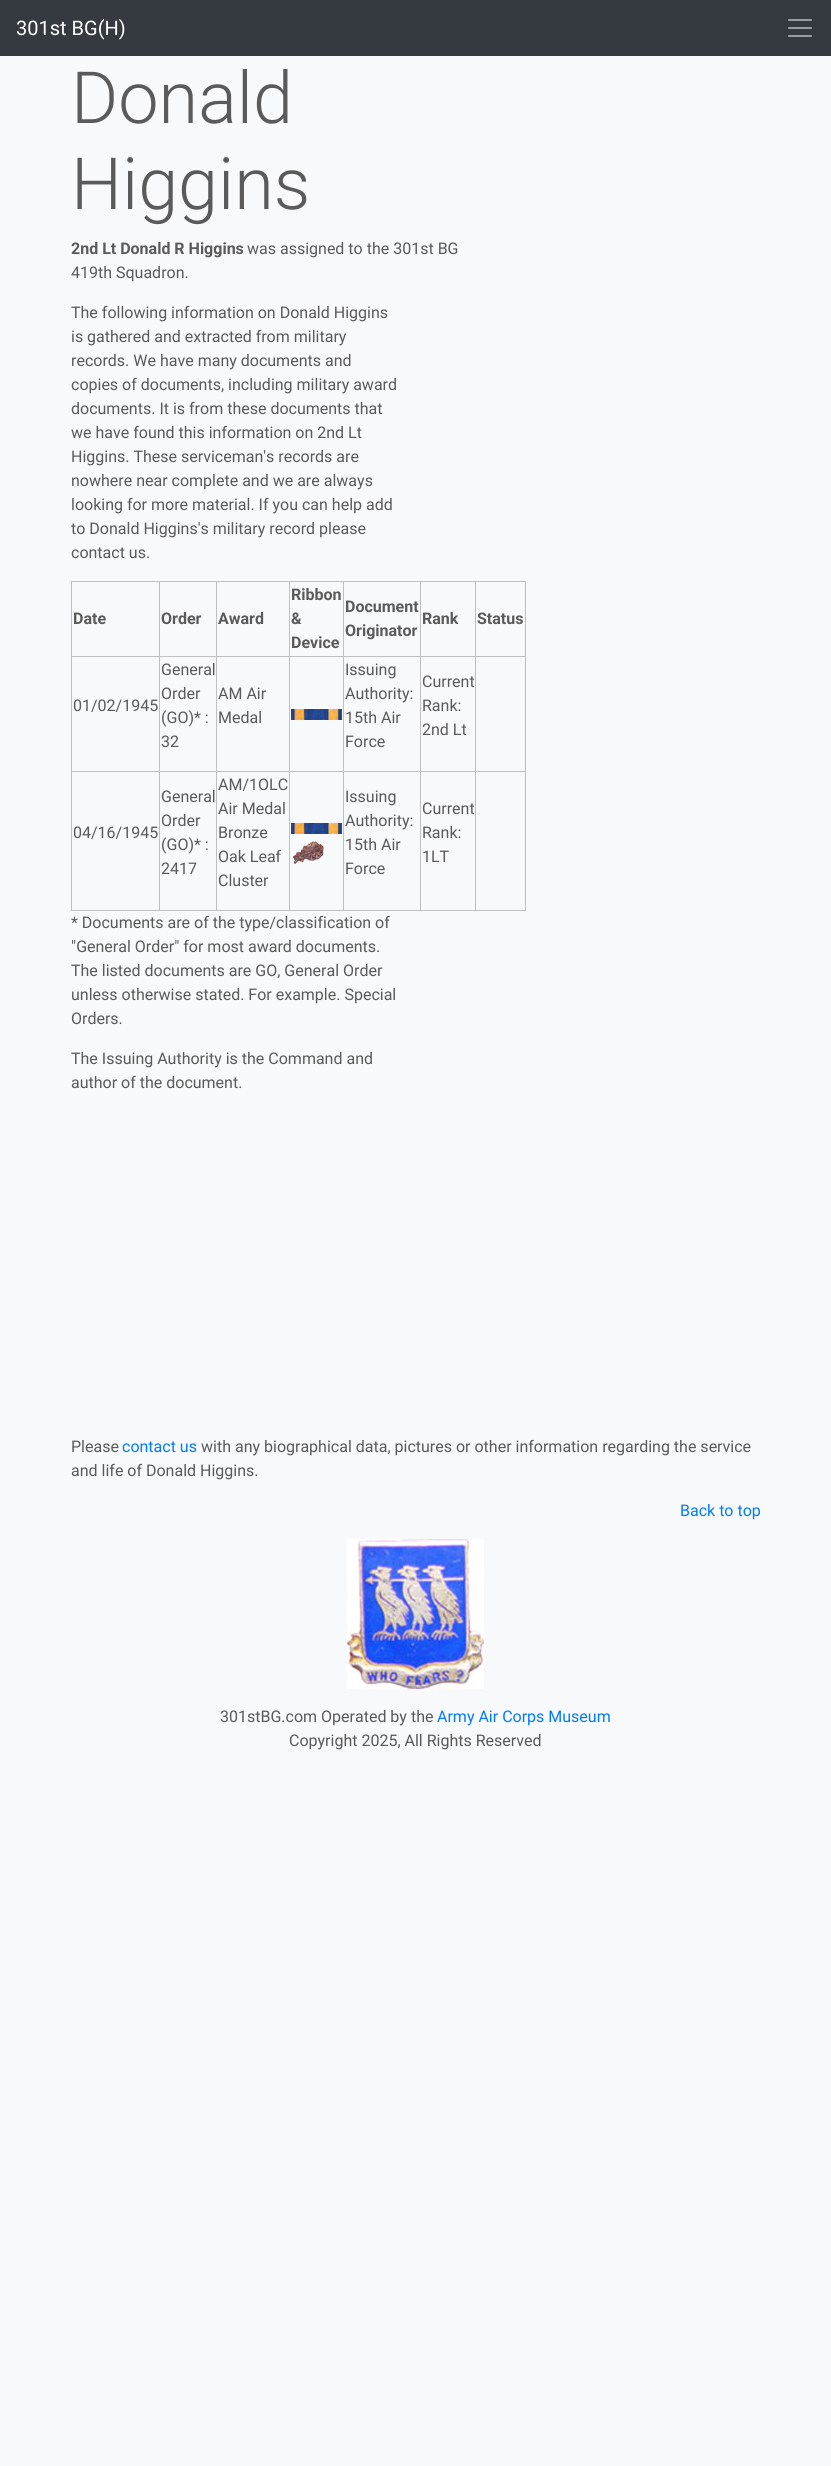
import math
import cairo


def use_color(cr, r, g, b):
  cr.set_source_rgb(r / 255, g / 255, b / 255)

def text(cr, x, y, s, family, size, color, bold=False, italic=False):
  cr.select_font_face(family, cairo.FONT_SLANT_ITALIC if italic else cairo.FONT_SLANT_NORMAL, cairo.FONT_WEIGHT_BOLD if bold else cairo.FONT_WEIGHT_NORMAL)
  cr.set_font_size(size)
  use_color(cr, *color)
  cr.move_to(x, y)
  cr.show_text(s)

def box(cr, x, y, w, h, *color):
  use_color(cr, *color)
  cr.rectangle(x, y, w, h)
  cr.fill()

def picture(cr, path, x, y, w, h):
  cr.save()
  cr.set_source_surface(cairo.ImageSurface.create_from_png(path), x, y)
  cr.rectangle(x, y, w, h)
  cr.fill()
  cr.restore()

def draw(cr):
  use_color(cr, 248, 249, 250)
  cr.paint()
  box(cr, 0, 0, 831, 56, 52, 58, 64)
  picture(cr, "img_01.png", 788, 19, 24, 18)
  box(cr, 71, 581, 455, 1, 192, 192, 192)
  box(cr, 525, 581, 1, 330, 192, 192, 192)
  box(cr, 71, 910, 455, 1, 192, 192, 192)
  box(cr, 71, 581, 1, 330, 192, 192, 192)
  box(cr, 475, 656, 51, 1, 192, 192, 192)
  box(cr, 475, 771, 51, 1, 192, 192, 192)
  box(cr, 475, 771, 1, 140, 192, 192, 192)
  box(cr, 420, 771, 56, 1, 192, 192, 192)
  box(cr, 475, 656, 1, 116, 192, 192, 192)
  box(cr, 420, 656, 56, 1, 192, 192, 192)
  box(cr, 420, 771, 1, 140, 192, 192, 192)
  box(cr, 343, 771, 78, 1, 192, 192, 192)
  box(cr, 420, 656, 1, 116, 192, 192, 192)
  box(cr, 343, 656, 78, 1, 192, 192, 192)
  box(cr, 343, 771, 1, 140, 192, 192, 192)
  box(cr, 289, 771, 55, 1, 192, 192, 192)
  box(cr, 343, 656, 1, 116, 192, 192, 192)
  box(cr, 289, 656, 55, 1, 192, 192, 192)
  box(cr, 289, 771, 1, 140, 192, 192, 192)
  box(cr, 216, 771, 74, 1, 192, 192, 192)
  box(cr, 289, 656, 1, 116, 192, 192, 192)
  box(cr, 216, 656, 74, 1, 192, 192, 192)
  box(cr, 216, 771, 1, 140, 192, 192, 192)
  box(cr, 159, 771, 58, 1, 192, 192, 192)
  box(cr, 216, 656, 1, 116, 192, 192, 192)
  box(cr, 159, 656, 58, 1, 192, 192, 192)
  box(cr, 159, 771, 1, 140, 192, 192, 192)
  box(cr, 71, 771, 89, 1, 192, 192, 192)
  box(cr, 159, 656, 1, 116, 192, 192, 192)
  box(cr, 71, 656, 89, 1, 192, 192, 192)
  box(cr, 159, 581, 1, 76, 192, 192, 192)
  box(cr, 216, 581, 1, 76, 192, 192, 192)
  box(cr, 289, 581, 1, 76, 192, 192, 192)
  box(cr, 343, 581, 1, 76, 192, 192, 192)
  box(cr, 420, 581, 1, 76, 192, 192, 192)
  box(cr, 475, 581, 1, 76, 192, 192, 192)
  picture(cr, "img_02.png", 291, 709, 51, 11)
  picture(cr, "img_02.png", 291, 823, 51, 11)
  picture(cr, "img_03.png", 293, 841, 31, 23)
  picture(cr, "img_04.png", 347, 1539, 137, 150)
  text(cr, 16, 35, "301st BG(H)", "Roboto", 20, (255, 255, 255))
  text(cr, 71, 123, "Donald", "Roboto Light", 72, (90, 90, 90))
  text(cr, 71, 209, "Higgins", "Roboto Light", 72, (90, 90, 90))
  text(cr, 71, 254, "2nd Lt Donald R Higgins", "Roboto", 16, (90, 90, 90), bold=True)
  text(cr, 247, 254, "was assigned to the 301st BG", "Roboto", 16, (90, 90, 90))
  text(cr, 71, 278, "419th Squadron.", "Roboto", 16, (90, 90, 90))
  text(cr, 71, 318, "The following information on Donald Higgins", "Roboto", 16, (90, 90, 90))
  text(cr, 71, 342, "is gathered and extracted from military", "Roboto", 16, (90, 90, 90))
  text(cr, 71, 366, "records. We have many documents and", "Roboto", 16, (90, 90, 90))
  text(cr, 71, 390, "copies of documents, including military award", "Roboto", 16, (90, 90, 90))
  text(cr, 71, 414, "documents. It is from these documents that", "Roboto", 16, (90, 90, 90))
  text(cr, 71, 438, "we have found this information on 2nd Lt", "Roboto", 16, (90, 90, 90))
  text(cr, 71, 462, "Higgins. These serviceman's records are", "Roboto", 16, (90, 90, 90))
  text(cr, 71, 486, "nowhere near complete and we are always", "Roboto", 16, (90, 90, 90))
  text(cr, 71, 510, "looking for more material. If you can help add", "Roboto", 16, (90, 90, 90))
  text(cr, 71, 534, "to Donald Higgins's military record please", "Roboto", 16, (90, 90, 90))
  text(cr, 71, 558, "contact us.", "Roboto", 16, (90, 90, 90))
  text(cr, 73, 624, "Date", "Roboto", 16, (90, 90, 90), bold=True)
  text(cr, 161, 624, "Order", "Roboto", 16, (90, 90, 90), bold=True)
  text(cr, 218, 624, "Award", "Roboto", 16, (90, 90, 90), bold=True)
  text(cr, 291, 600, "Ribbon", "Roboto", 16, (90, 90, 90), bold=True)
  text(cr, 291, 624, "&", "Roboto", 16, (90, 90, 90), bold=True)
  text(cr, 291, 648, "Device", "Roboto", 16, (90, 90, 90), bold=True)
  text(cr, 345, 612, "Document", "Roboto", 16, (90, 90, 90), bold=True)
  text(cr, 345, 636, "Originator", "Roboto", 16, (90, 90, 90), bold=True)
  text(cr, 422, 624, "Rank", "Roboto", 16, (90, 90, 90), bold=True)
  text(cr, 477, 624, "Status", "Roboto", 16, (90, 90, 90), bold=True)
  text(cr, 73, 711, "01/02/1945", "Roboto", 16, (90, 90, 90))
  text(cr, 161, 675, "General", "Roboto", 16, (90, 90, 90))
  text(cr, 161, 699, "Order", "Roboto", 16, (90, 90, 90))
  text(cr, 161, 723, "(GO)* :", "Roboto", 16, (90, 90, 90))
  text(cr, 161, 747, "32", "Roboto", 16, (90, 90, 90))
  text(cr, 218, 699, "AM Air", "Roboto", 16, (90, 90, 90))
  text(cr, 218, 723, "Medal", "Roboto", 16, (90, 90, 90))
  text(cr, 345, 675, "Issuing", "Roboto", 16, (90, 90, 90))
  text(cr, 345, 699, "Authority:", "Roboto", 16, (90, 90, 90))
  text(cr, 345, 723, "15th Air", "Roboto", 16, (90, 90, 90))
  text(cr, 345, 747, "Force", "Roboto", 16, (90, 90, 90))
  text(cr, 422, 687, "Current", "Roboto", 16, (90, 90, 90))
  text(cr, 422, 711, "Rank:", "Roboto", 16, (90, 90, 90))
  text(cr, 422, 735, "2nd Lt", "Roboto", 16, (90, 90, 90))
  text(cr, 73, 838, "04/16/1945", "Roboto", 16, (90, 90, 90))
  text(cr, 161, 802, "General", "Roboto", 16, (90, 90, 90))
  text(cr, 161, 826, "Order", "Roboto", 16, (90, 90, 90))
  text(cr, 161, 850, "(GO)* :", "Roboto", 16, (90, 90, 90))
  text(cr, 161, 874, "2417", "Roboto", 16, (90, 90, 90))
  text(cr, 218, 790, "AM/1OLC", "Roboto", 16, (90, 90, 90))
  text(cr, 218, 814, "Air Medal", "Roboto", 16, (90, 90, 90))
  text(cr, 218, 838, "Bronze", "Roboto", 16, (90, 90, 90))
  text(cr, 218, 862, "Oak Leaf", "Roboto", 16, (90, 90, 90))
  text(cr, 218, 886, "Cluster", "Roboto", 16, (90, 90, 90))
  text(cr, 345, 802, "Issuing", "Roboto", 16, (90, 90, 90))
  text(cr, 345, 826, "Authority:", "Roboto", 16, (90, 90, 90))
  text(cr, 345, 850, "15th Air", "Roboto", 16, (90, 90, 90))
  text(cr, 345, 874, "Force", "Roboto", 16, (90, 90, 90))
  text(cr, 422, 814, "Current", "Roboto", 16, (90, 90, 90))
  text(cr, 422, 838, "Rank:", "Roboto", 16, (90, 90, 90))
  text(cr, 422, 862, "1LT", "Roboto", 16, (90, 90, 90))
  text(cr, 71, 928, "* Documents are of the type/classification of", "Roboto", 16, (90, 90, 90))
  text(cr, 71, 952, "\"General Order\" for most award documents.", "Roboto", 16, (90, 90, 90))
  text(cr, 71, 976, "The listed documents are GO, General Order", "Roboto", 16, (90, 90, 90))
  text(cr, 71, 1000, "unless otherwise stated. For example. Special", "Roboto", 16, (90, 90, 90))
  text(cr, 71, 1024, "Orders.", "Roboto", 16, (90, 90, 90))
  text(cr, 71, 1064, "The Issuing Authority is the Command and", "Roboto", 16, (90, 90, 90))
  text(cr, 71, 1088, "author of the document.", "Roboto", 16, (90, 90, 90))
  text(cr, 71, 1452, "Please", "Roboto", 16, (90, 90, 90))
  text(cr, 122, 1452, "contact us", "Roboto", 16, (0, 123, 255))
  text(cr, 201, 1452, "with any biographical data, pictures or other information regarding the service", "Roboto", 16, (90, 90, 90))
  text(cr, 71, 1476, "and life of Donald Higgins.", "Roboto", 16, (90, 90, 90))
  text(cr, 680, 1516, "Back to top", "Roboto", 16, (0, 123, 255))
  text(cr, 220, 1722, "301stBG.com Operated by the", "Roboto", 16, (90, 90, 90))
  text(cr, 437, 1722, "Army Air Corps Museum", "Roboto", 16, (0, 123, 255))
  text(cr, 289, 1746, "Copyright 2025, All Rights Reserved", "Roboto", 16, (90, 90, 90))


surface = cairo.ImageSurface(cairo.FORMAT_RGB24, 831, 2466)
cr = cairo.Context(surface)
options = cairo.FontOptions()
options.set_hint_metrics(cairo.HINT_METRICS_OFF)
options.set_hint_style(cairo.HINT_STYLE_NONE)
cr.set_font_options(options)
cr.set_miter_limit(4)
draw(cr)
surface.write_to_png("out.png")
